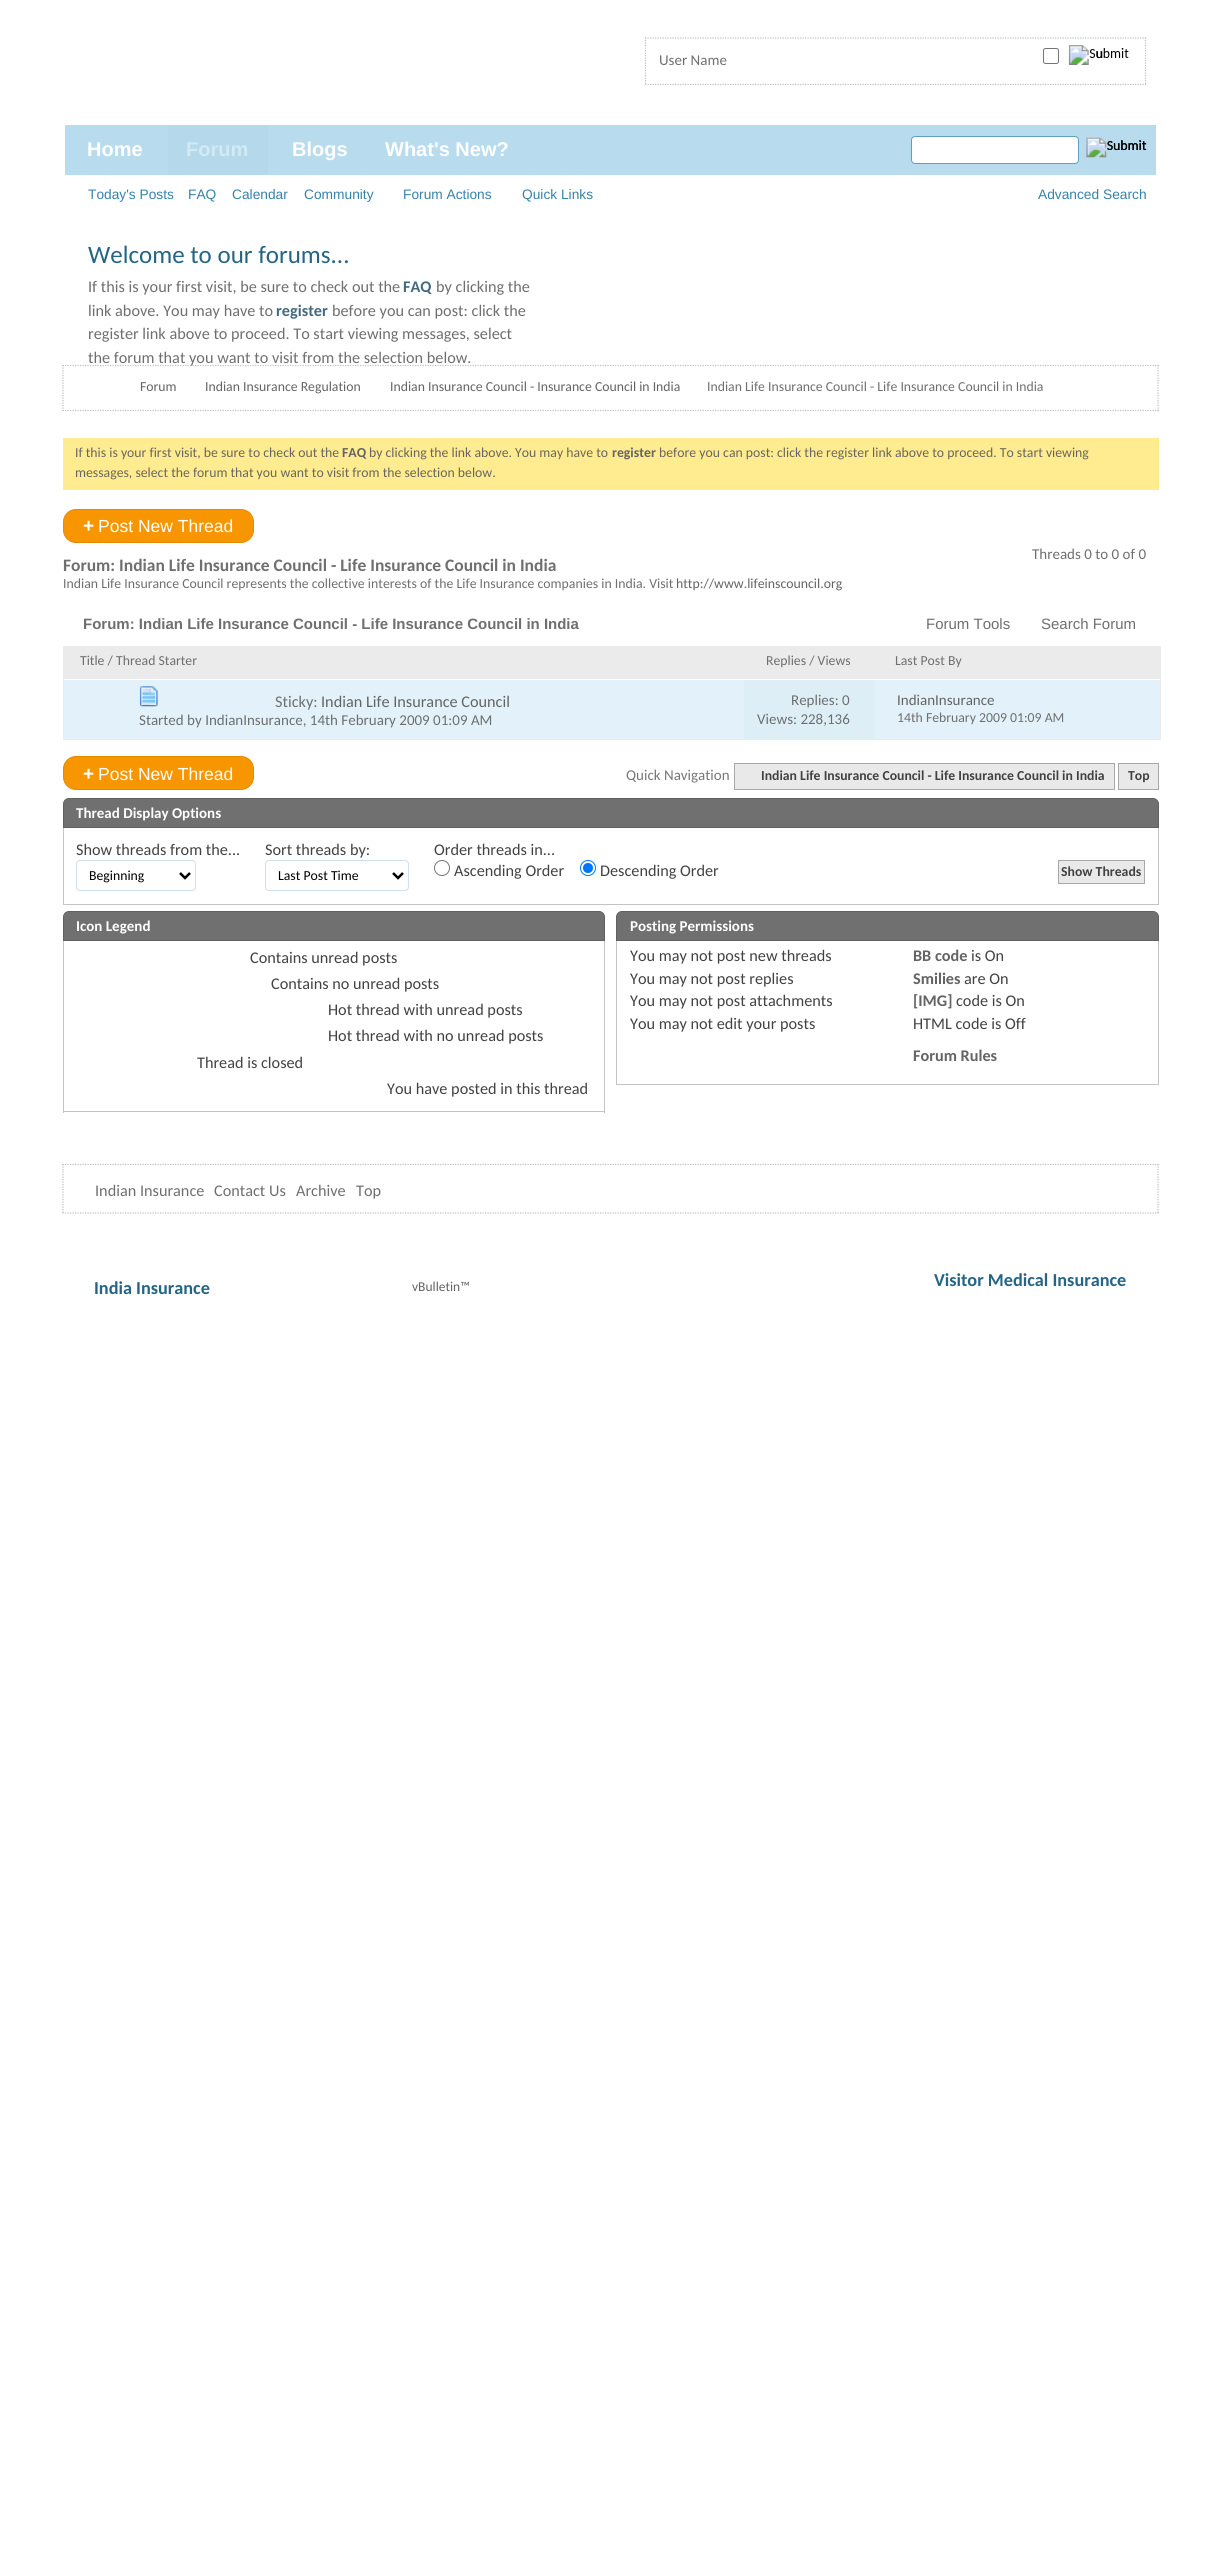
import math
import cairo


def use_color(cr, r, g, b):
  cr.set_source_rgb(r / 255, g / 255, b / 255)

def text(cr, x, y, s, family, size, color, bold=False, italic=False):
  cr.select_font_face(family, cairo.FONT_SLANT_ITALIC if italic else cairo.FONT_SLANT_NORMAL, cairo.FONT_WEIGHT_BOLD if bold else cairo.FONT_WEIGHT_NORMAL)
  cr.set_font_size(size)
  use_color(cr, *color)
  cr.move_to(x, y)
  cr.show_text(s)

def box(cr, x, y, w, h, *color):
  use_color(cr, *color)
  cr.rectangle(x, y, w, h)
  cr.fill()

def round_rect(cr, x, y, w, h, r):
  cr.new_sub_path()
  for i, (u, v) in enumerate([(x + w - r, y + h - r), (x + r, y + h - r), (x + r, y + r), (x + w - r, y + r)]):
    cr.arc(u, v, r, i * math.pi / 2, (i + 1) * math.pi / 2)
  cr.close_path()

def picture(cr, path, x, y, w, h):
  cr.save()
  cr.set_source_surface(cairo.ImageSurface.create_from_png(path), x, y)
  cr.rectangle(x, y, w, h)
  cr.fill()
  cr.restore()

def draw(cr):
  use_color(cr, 255, 255, 255)
  cr.paint()
  cr.new_path()
  cr.move_to(645, 38)
  cr.line_to(1146, 38)
  use_color(cr, 191, 193, 194)
  cr.set_line_width(1.2)
  cr.set_dash([1.25, 1.25])
  cr.stroke()
  cr.new_path()
  cr.move_to(1145.5, 37.5)
  cr.line_to(1145.5, 85)
  cr.stroke()
  cr.new_path()
  cr.move_to(645, 84.5)
  cr.line_to(1146, 84.5)
  cr.stroke()
  cr.new_path()
  cr.move_to(645.5, 37.5)
  cr.line_to(645.5, 85)
  cr.stroke()
  round_rect(cr, 1043.5, 48.5, 15, 15, 2)
  use_color(cr, 118, 118, 118)
  cr.set_line_width(1)
  cr.set_dash([])
  cr.stroke()
  picture(cr, "img_01.png", 1068, 45, 61, 20)
  box(cr, 65, 125, 1091, 50, 184, 219, 238)
  box(cr, 168, 125, 100, 50, 181, 216, 235)
  use_color(cr, 255, 255, 255)
  round_rect(cr, 911.5, 136.5, 167, 27, 3.5)
  cr.fill_preserve()
  use_color(cr, 93, 160, 195)
  cr.stroke()
  picture(cr, "img_02.png", 1086, 137, 60, 21)
  cr.new_path()
  cr.move_to(62.5, 365.5)
  cr.line_to(1159, 365.5)
  use_color(cr, 191, 193, 194)
  cr.set_line_width(1.2)
  cr.set_dash([1.25, 1.25])
  cr.stroke()
  cr.new_path()
  cr.move_to(1158, 365)
  cr.line_to(1158, 411)
  cr.stroke()
  cr.new_path()
  cr.move_to(62.5, 410.5)
  cr.line_to(1159, 410.5)
  cr.stroke()
  cr.new_path()
  cr.move_to(63, 365)
  cr.line_to(63, 411)
  cr.stroke()
  box(cr, 63, 438, 1096, 52, 255, 235, 144)
  use_color(cr, 248, 150, 2)
  round_rect(cr, 63.5, 509.5, 190, 33, 12.5)
  cr.fill_preserve()
  use_color(cr, 229, 137, 0)
  cr.set_line_width(1)
  cr.set_dash([])
  cr.stroke()
  box(cr, 63, 646, 1098, 33, 235, 235, 235)
  box(cr, 64, 680, 1096, 59, 227, 242, 250)
  box(cr, 1160, 679, 1, 61, 235, 235, 235)
  box(cr, 63, 739, 1098, 1, 235, 235, 235)
  box(cr, 63, 679, 1, 61, 235, 235, 235)
  picture(cr, "img_03.png", 139, 686, 19, 21)
  box(cr, 744, 680, 131, 59, 221, 238, 247)
  use_color(cr, 248, 150, 2)
  round_rect(cr, 63.5, 756.5, 190, 33, 12.5)
  cr.fill_preserve()
  use_color(cr, 229, 137, 0)
  cr.stroke()
  use_color(cr, 233, 233, 233)
  cr.rectangle(734.5, 763.5, 380, 26)
  cr.fill_preserve()
  use_color(cr, 168, 168, 168)
  cr.stroke()
  use_color(cr, 233, 233, 233)
  cr.rectangle(1118.5, 763.5, 40, 26)
  cr.fill_preserve()
  use_color(cr, 168, 168, 168)
  cr.stroke()
  use_color(cr, 112, 112, 112)
  cr.new_path()
  cr.move_to(69, 798.5)
  cr.line_to(1153, 798.5)
  cr.curve_to(1156, 798.5, 1158.5, 801, 1158.5, 804)
  cr.line_to(1158.5, 827.5)
  cr.line_to(63.5, 827.5)
  cr.line_to(63.5, 804)
  cr.curve_to(63.5, 801, 66, 798.5, 69, 798.5)
  cr.close_path()
  cr.fill_preserve()
  use_color(cr, 96, 96, 96)
  cr.stroke()
  box(cr, 1158, 828, 1, 77, 196, 196, 196)
  box(cr, 63, 904, 1096, 1, 196, 196, 196)
  box(cr, 63, 828, 1, 77, 196, 196, 196)
  round_rect(cr, 76.5, 860.5, 119, 30, 3.5)
  use_color(cr, 206, 223, 235)
  cr.stroke()
  cr.new_path()
  cr.move_to(180, 873)
  cr.line_to(185, 878)
  cr.line_to(190, 873)
  use_color(cr, 0, 0, 0)
  cr.set_line_width(2.5)
  cr.stroke()
  round_rect(cr, 265.5, 860.5, 143, 30, 3.5)
  use_color(cr, 206, 223, 235)
  cr.set_line_width(1)
  cr.stroke()
  cr.new_path()
  cr.move_to(393, 873)
  cr.line_to(398, 878)
  cr.line_to(403, 873)
  use_color(cr, 0, 0, 0)
  cr.set_line_width(2.5)
  cr.stroke()
  cr.arc(442, 868, 7.5, 0, 2 * math.pi)
  use_color(cr, 118, 118, 118)
  cr.set_line_width(1)
  cr.stroke()
  cr.arc(588, 868, 7.5, 0, 2 * math.pi)
  use_color(cr, 0, 117, 255)
  cr.stroke()
  cr.arc(588, 868, 5, 0, 2 * math.pi)
  cr.fill()
  use_color(cr, 233, 233, 233)
  cr.rectangle(1058.5, 860.5, 86, 23)
  cr.fill_preserve()
  use_color(cr, 168, 168, 168)
  cr.stroke()
  use_color(cr, 112, 112, 112)
  cr.new_path()
  cr.move_to(69, 911.5)
  cr.line_to(599, 911.5)
  cr.curve_to(602, 911.5, 604.5, 914, 604.5, 917)
  cr.line_to(604.5, 940.5)
  cr.line_to(63.5, 940.5)
  cr.line_to(63.5, 917)
  cr.curve_to(63.5, 914, 66, 911.5, 69, 911.5)
  cr.close_path()
  cr.fill_preserve()
  use_color(cr, 96, 96, 96)
  cr.stroke()
  box(cr, 604, 941, 1, 172, 196, 196, 196)
  box(cr, 63, 1111, 542, 1, 196, 196, 196)
  box(cr, 63, 941, 1, 172, 196, 196, 196)
  use_color(cr, 112, 112, 112)
  cr.new_path()
  cr.move_to(622, 911.5)
  cr.line_to(1153, 911.5)
  cr.curve_to(1156, 911.5, 1158.5, 914, 1158.5, 917)
  cr.line_to(1158.5, 940.5)
  cr.line_to(616.5, 940.5)
  cr.line_to(616.5, 917)
  cr.curve_to(616.5, 914, 619, 911.5, 622, 911.5)
  cr.close_path()
  cr.fill_preserve()
  use_color(cr, 96, 96, 96)
  cr.stroke()
  box(cr, 1158, 941, 1, 144, 196, 196, 196)
  box(cr, 616, 1084, 543, 1, 196, 196, 196)
  box(cr, 616, 941, 1, 144, 196, 196, 196)
  cr.new_path()
  cr.move_to(62.5, 1164.5)
  cr.line_to(1159, 1164.5)
  use_color(cr, 191, 193, 194)
  cr.set_line_width(1.2)
  cr.set_dash([1.25, 1.25])
  cr.stroke()
  cr.new_path()
  cr.move_to(1158, 1164)
  cr.line_to(1158, 1214)
  cr.stroke()
  cr.new_path()
  cr.move_to(62.5, 1213)
  cr.line_to(1159, 1213)
  cr.stroke()
  cr.new_path()
  cr.move_to(63, 1164)
  cr.line_to(63, 1214)
  cr.stroke()
  text(cr, 659, 65, "User Name", "Carlito", 15, (111, 111, 111))
  text(cr, 1096, 58, "u", "Carlito", 13.75, (0, 0, 0))
  text(cr, 292, 156, "Blogs", "Liberation Sans", 20, (255, 255, 255), bold=True)
  text(cr, 385, 156, "What's New?", "Liberation Sans", 20, (255, 255, 255), bold=True)
  text(cr, 186, 156, "Forum", "Liberation Sans", 20, (209, 234, 246), bold=True)
  text(cr, 88, 199, "Today's Posts", "Liberation Sans", 13.75, (53, 130, 169))
  text(cr, 188, 199, "FAQ", "Liberation Sans", 13.75, (53, 130, 169))
  text(cr, 232, 199, "Calendar", "Liberation Sans", 13.75, (53, 130, 169))
  text(cr, 304, 199, "Community", "Liberation Sans", 13.75, (53, 130, 169))
  text(cr, 403, 199, "Forum Actions", "Liberation Sans", 13.75, (53, 130, 169))
  text(cr, 522, 199, "Quick Links", "Liberation Sans", 13.75, (53, 130, 169))
  text(cr, 87, 156, "Home", "Liberation Sans", 20, (255, 255, 255), bold=True)
  text(cr, 1107, 150, "Submit", "Carlito", 13.75, (0, 0, 0))
  text(cr, 1038, 199, "Advanced Search", "Liberation Sans", 13.75, (53, 130, 169))
  text(cr, 88, 263, "Welcome to our forums...", "Carlito", 25, (36, 101, 134))
  text(cr, 88, 292, "If this is your first visit, be sure to check out the", "Carlito", 16.25, (111, 111, 111))
  text(cr, 403, 292, "FAQ", "Carlito", 16.25, (67, 105, 125), bold=True)
  text(cr, 436, 292, "by clicking the", "Carlito", 16.25, (111, 111, 111))
  text(cr, 88, 316, "link above. You may have to", "Carlito", 16.25, (111, 111, 111))
  text(cr, 276, 316, "register", "Carlito", 16.25, (67, 105, 125), bold=True)
  text(cr, 332, 316, "before you can post: click the", "Carlito", 16.25, (111, 111, 111))
  text(cr, 88, 339, "register link above to proceed. To start viewing messages, select", "Carlito", 16.25, (111, 111, 111))
  text(cr, 88, 363, "the forum that you want to visit from the selection below.", "Carlito", 16.25, (111, 111, 111))
  text(cr, 140, 391, "Forum", "Carlito", 13.75, (100, 100, 100))
  text(cr, 205, 391, "Indian Insurance Regulation", "Carlito", 13.75, (100, 100, 100))
  text(cr, 390, 391, "Indian Insurance Council - Insurance Council in India", "Carlito", 13.75, (100, 100, 100))
  text(cr, 707, 391, "Indian Life Insurance Council - Life Insurance Council in India", "Carlito", 13.75, (111, 111, 111))
  text(cr, 75, 457, "If this is your first visit, be sure to check out the", "Carlito", 13.75, (105, 103, 93))
  text(cr, 342, 457, "FAQ", "Carlito", 13.75, (100, 100, 100), bold=True)
  text(cr, 369, 457, "by clicking the link above. You may have to", "Carlito", 13.75, (105, 103, 93))
  text(cr, 612, 457, "register", "Carlito", 13.75, (100, 100, 100), bold=True)
  text(cr, 659, 457, "before you can post: click the register link above to proceed. To start viewing", "Carlito", 13.75, (105, 103, 93))
  text(cr, 75, 477, "messages, select the forum that you want to visit from the selection below.", "Carlito", 13.75, (105, 103, 93))
  text(cr, 83, 532, "+", "Liberation Sans", 19, (255, 255, 255), bold=True)
  text(cr, 98, 532, "Post New Thread", "Liberation Sans", 17.5, (255, 255, 255))
  text(cr, 1032, 559, "Threads 0 to 0 of 0", "Carlito", 15, (111, 111, 111))
  text(cr, 63, 571, "Forum: Indian Life Insurance Council - Life Insurance Council in India", "Carlito", 17.5, (111, 111, 111), bold=True)
  text(cr, 63, 588, "Indian Life Insurance Council represents the collective interests of the Life Insurance companies in India. Visit", "Carlito", 13.8, (111, 111, 111))
  text(cr, 676, 588, "http://www.lifeinscouncil.org", "Carlito", 13.8, (100, 100, 100))
  text(cr, 83, 629, "Forum: Indian Life Insurance Council - Life Insurance Council in India", "Liberation Sans", 15, (111, 111, 111), bold=True)
  text(cr, 926, 629, "Forum Tools", "Liberation Sans", 15, (111, 111, 111))
  text(cr, 1041, 629, "Search Forum", "Liberation Sans", 15, (111, 111, 111))
  text(cr, 80, 665, "Title / Thread Starter", "Carlito", 13.75, (111, 111, 111))
  text(cr, 766, 665, "Replies / Views", "Carlito", 13.75, (111, 111, 111))
  text(cr, 895, 665, "Last Post By", "Carlito", 13.75, (111, 111, 111))
  text(cr, 275, 707, "Sticky:", "Carlito", 16.25, (111, 111, 111))
  text(cr, 321, 707, "Indian Life Insurance Council", "Carlito", 16.25, (100, 100, 100))
  text(cr, 139, 725, "Started by IndianInsurance, 14th February 2009 01:09 AM", "Carlito", 15, (111, 111, 111))
  text(cr, 791, 705, "Replies: 0", "Carlito", 15, (111, 111, 111))
  text(cr, 757, 724, "Views: 228,136", "Carlito", 15, (111, 111, 111))
  text(cr, 897, 705, "IndianInsurance", "Carlito", 15, (100, 100, 100))
  text(cr, 897, 722, "14th February 2009 01:09 AM", "Carlito", 13.75, (111, 111, 111))
  text(cr, 83, 780, "+", "Liberation Sans", 19, (255, 255, 255), bold=True)
  text(cr, 98, 780, "Post New Thread", "Liberation Sans", 17.5, (255, 255, 255))
  text(cr, 626, 780, "Quick Navigation", "Carlito", 15, (119, 119, 119))
  text(cr, 761, 780, "Indian Life Insurance Council - Life Insurance Council in India", "Carlito", 13.75, (66, 66, 66), bold=True)
  text(cr, 1128, 780, "Top", "Carlito", 13.75, (66, 66, 66), bold=True)
  text(cr, 76, 818, "Thread Display Options", "Carlito", 15, (255, 255, 255), bold=True)
  text(cr, 76, 855, "Show threads from the...", "Carlito", 16.25, (66, 66, 66))
  text(cr, 89, 880, "Beginning", "Carlito", 13.75, (0, 0, 0))
  text(cr, 265, 855, "Sort threads by:", "Carlito", 16.25, (66, 66, 66))
  text(cr, 278, 880, "Last Post Time", "Carlito", 13.75, (0, 0, 0))
  text(cr, 434, 855, "Order threads in...", "Carlito", 16.25, (66, 66, 66))
  text(cr, 454, 876, "Ascending Order", "Carlito", 16.25, (66, 66, 66))
  text(cr, 600, 876, "Descending Order", "Carlito", 16.25, (66, 66, 66))
  text(cr, 1061, 876, "Show Threads", "Carlito", 13.75, (66, 66, 66), bold=True)
  text(cr, 76, 931, "Icon Legend", "Carlito", 15, (255, 255, 255), bold=True)
  text(cr, 250, 963, "Contains unread posts", "Carlito", 16.25, (66, 66, 66))
  text(cr, 271, 989, "Contains no unread posts", "Carlito", 16.25, (66, 66, 66))
  text(cr, 328, 1015, "Hot thread with unread posts", "Carlito", 16.25, (66, 66, 66))
  text(cr, 328, 1041, "Hot thread with no unread posts", "Carlito", 16.25, (66, 66, 66))
  text(cr, 197, 1068, "Thread is closed", "Carlito", 16.25, (66, 66, 66))
  text(cr, 387, 1094, "You have posted in this thread", "Carlito", 16.25, (66, 66, 66))
  text(cr, 630, 931, "Posting Permissions", "Carlito", 15, (255, 255, 255), bold=True)
  text(cr, 630, 961, "You may not post new threads", "Carlito", 16.25, (66, 66, 66))
  text(cr, 630, 984, "You may not post replies", "Carlito", 16.25, (66, 66, 66))
  text(cr, 630, 1006, "You may not post attachments", "Carlito", 16.25, (66, 66, 66))
  text(cr, 630, 1029, "You may not edit your posts", "Carlito", 16.25, (66, 66, 66))
  text(cr, 913, 961, "BB code", "Carlito", 16.25, (100, 100, 100), bold=True)
  text(cr, 971, 961, "is On", "Carlito", 16.25, (66, 66, 66))
  text(cr, 913, 984, "Smilies", "Carlito", 16.25, (100, 100, 100), bold=True)
  text(cr, 964, 984, "are On", "Carlito", 16.25, (66, 66, 66))
  text(cr, 913, 1006, "[IMG]", "Carlito", 16.25, (100, 100, 100), bold=True)
  text(cr, 956, 1006, "code is On", "Carlito", 16.25, (66, 66, 66))
  text(cr, 913, 1029, "HTML code is Off", "Carlito", 16.25, (66, 66, 66))
  text(cr, 913, 1061, "Forum Rules", "Carlito", 16.25, (100, 100, 100), bold=True)
  text(cr, 95, 1196, "Indian Insurance", "Carlito", 16.25, (111, 111, 111))
  text(cr, 214, 1196, "Contact Us", "Carlito", 16.25, (111, 111, 111))
  text(cr, 296, 1196, "Archive", "Carlito", 16.25, (111, 111, 111))
  text(cr, 356, 1196, "Top", "Carlito", 16.25, (111, 111, 111))
  text(cr, 94, 1294, "India Insurance", "Carlito", 18.25, (36, 101, 134), bold=True)
  text(cr, 412, 1291, "vBulletin™", "Carlito", 13.5, (100, 100, 100))
  text(cr, 934, 1286, "Visitor Medical Insurance", "Carlito", 18.25, (36, 101, 134), bold=True)


surface = cairo.ImageSurface(cairo.FORMAT_RGB24, 1221, 2572)
cr = cairo.Context(surface)
options = cairo.FontOptions()
options.set_hint_metrics(cairo.HINT_METRICS_OFF)
options.set_hint_style(cairo.HINT_STYLE_NONE)
cr.set_font_options(options)
cr.set_miter_limit(4)
draw(cr)
surface.write_to_png("out.png")
